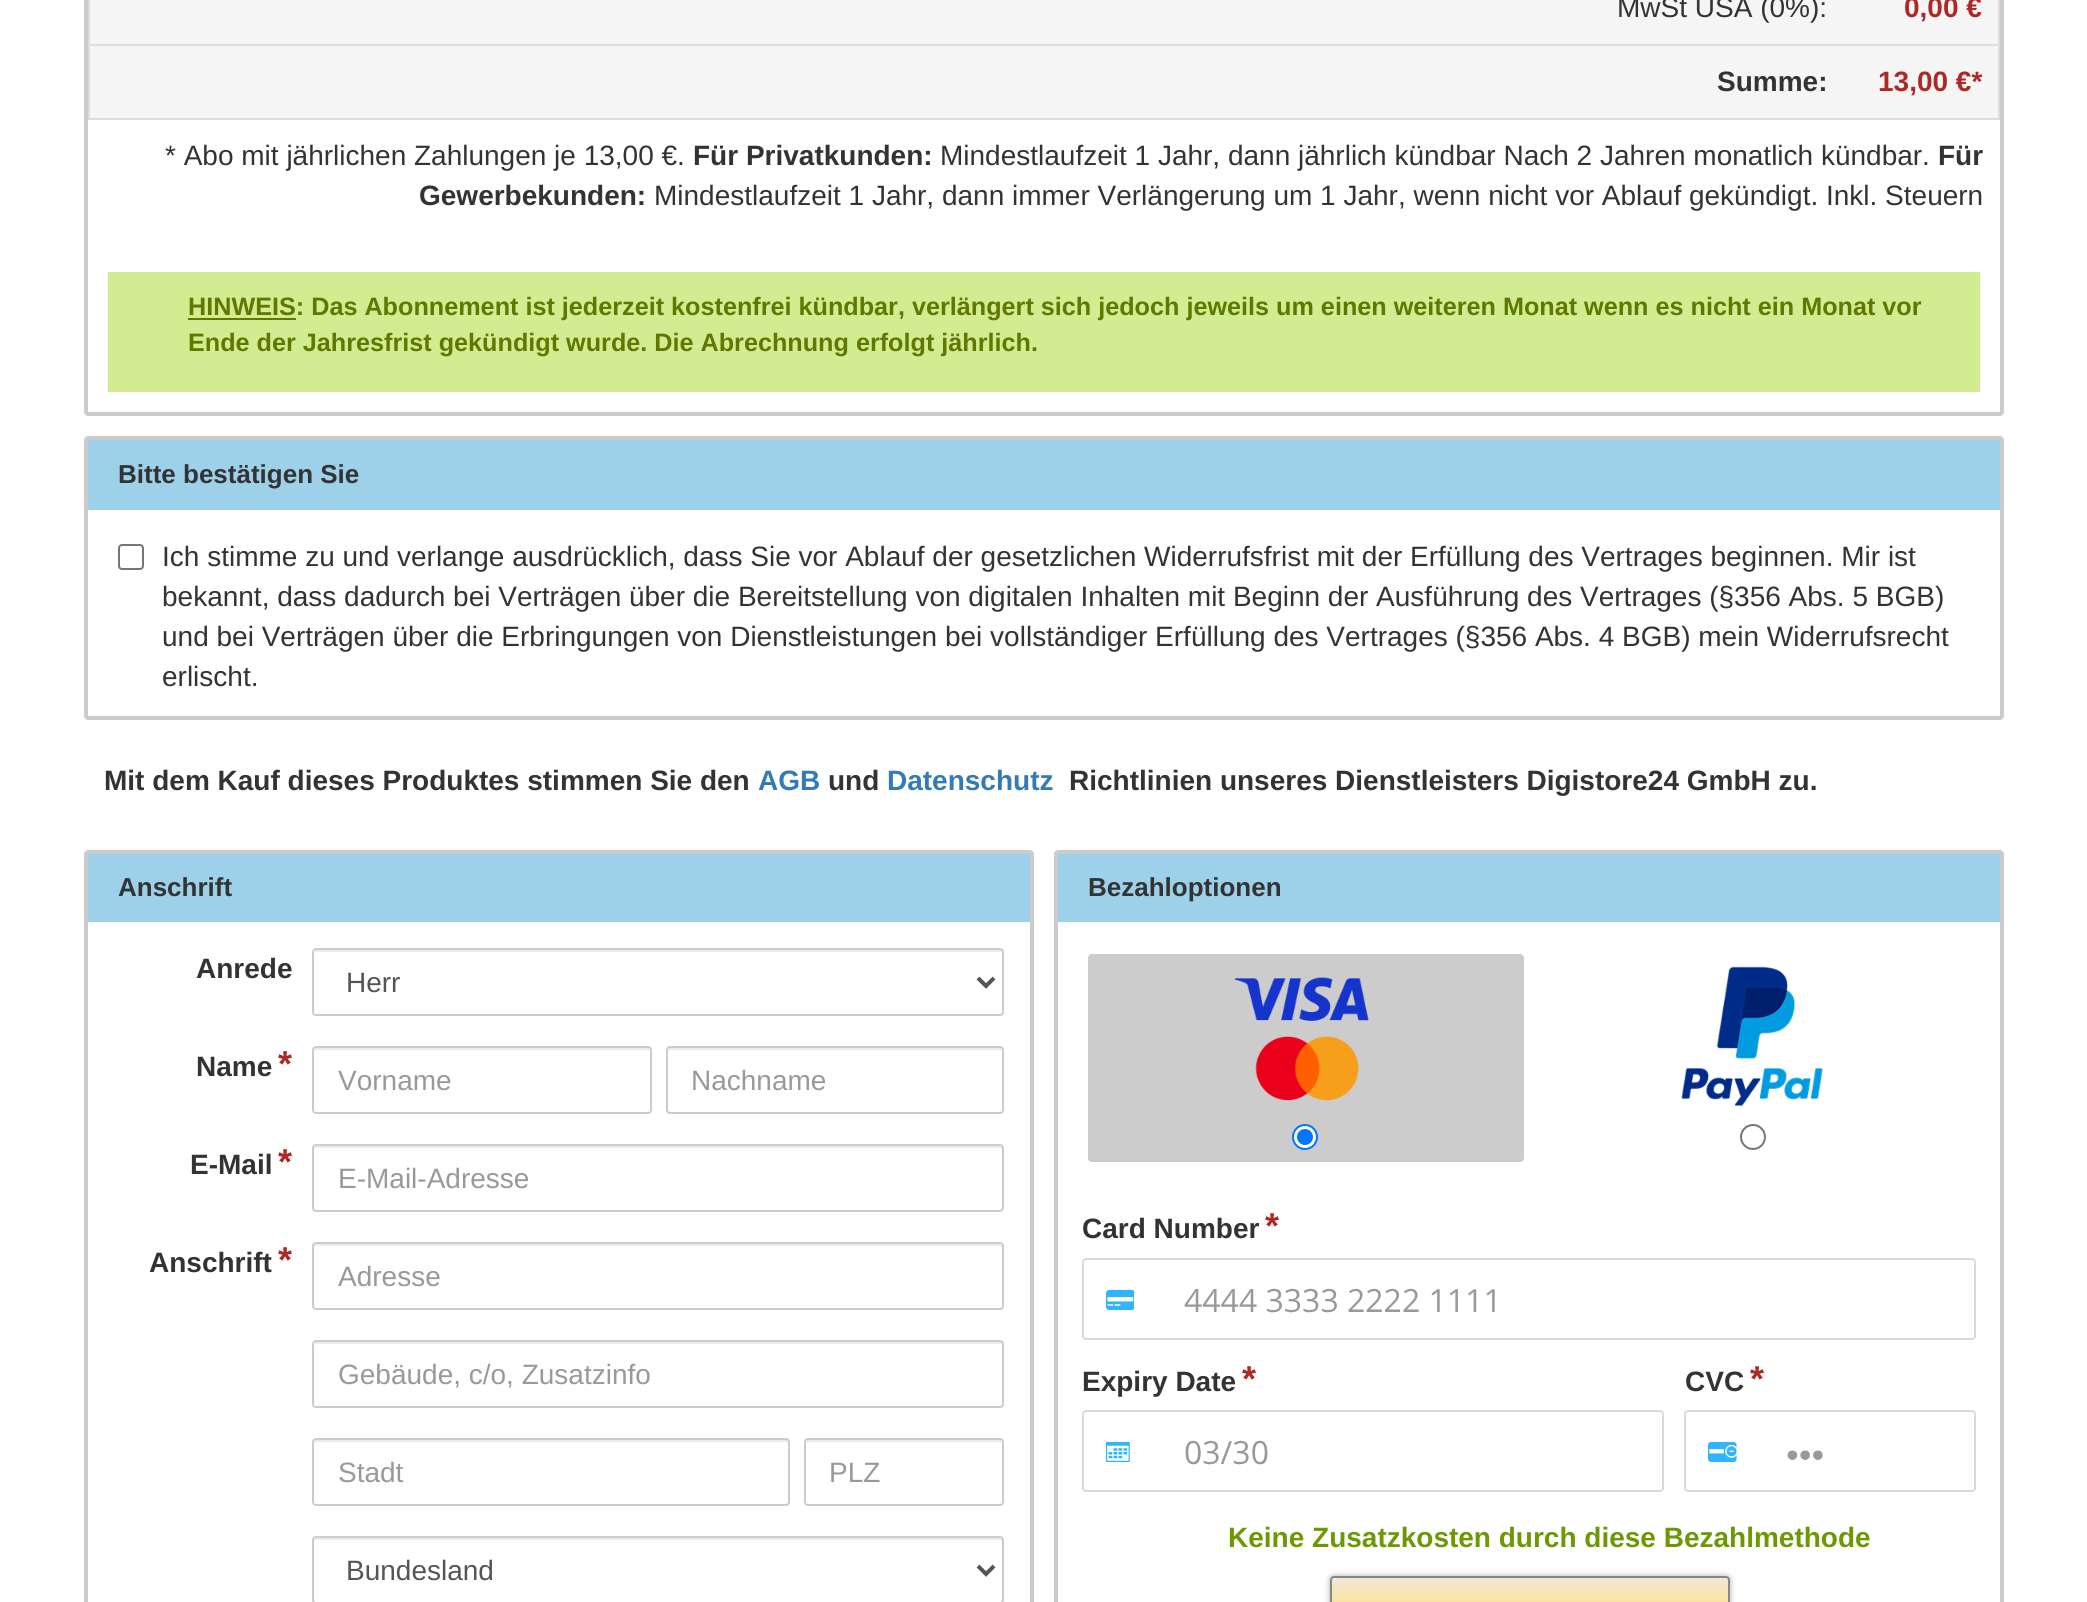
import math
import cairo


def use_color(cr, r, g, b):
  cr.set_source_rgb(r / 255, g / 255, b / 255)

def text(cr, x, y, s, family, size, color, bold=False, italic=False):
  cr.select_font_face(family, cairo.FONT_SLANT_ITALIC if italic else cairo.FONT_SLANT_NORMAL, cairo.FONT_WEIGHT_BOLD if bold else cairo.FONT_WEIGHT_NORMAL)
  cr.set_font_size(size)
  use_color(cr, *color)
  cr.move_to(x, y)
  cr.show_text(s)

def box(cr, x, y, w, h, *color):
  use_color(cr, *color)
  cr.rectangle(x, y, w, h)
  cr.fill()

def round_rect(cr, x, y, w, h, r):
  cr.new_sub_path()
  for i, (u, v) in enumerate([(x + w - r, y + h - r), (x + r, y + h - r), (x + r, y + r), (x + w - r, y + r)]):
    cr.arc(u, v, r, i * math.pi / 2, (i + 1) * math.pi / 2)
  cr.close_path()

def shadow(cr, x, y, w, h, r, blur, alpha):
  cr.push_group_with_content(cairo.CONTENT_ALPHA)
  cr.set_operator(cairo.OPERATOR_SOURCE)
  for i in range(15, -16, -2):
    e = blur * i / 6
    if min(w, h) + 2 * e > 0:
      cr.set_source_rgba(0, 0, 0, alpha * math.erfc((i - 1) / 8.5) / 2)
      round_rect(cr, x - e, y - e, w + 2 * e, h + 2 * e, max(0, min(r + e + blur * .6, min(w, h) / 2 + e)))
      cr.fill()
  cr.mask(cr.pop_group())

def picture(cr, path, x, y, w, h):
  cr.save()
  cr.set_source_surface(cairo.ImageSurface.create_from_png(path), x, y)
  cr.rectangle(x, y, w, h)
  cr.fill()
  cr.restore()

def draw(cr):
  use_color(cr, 255, 255, 255)
  cr.paint()
  round_rect(cr, 86, -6, 1916, 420, 2)
  use_color(cr, 204, 204, 204)
  cr.set_line_width(4)
  cr.stroke()
  box(cr, 90, 0, 1908, 44, 245, 245, 245)
  box(cr, 90, 46, 1908, 72, 245, 245, 245)
  box(cr, 88, 44, 1912, 2, 221, 221, 221)
  box(cr, 1998, 0, 2, 120, 221, 221, 221)
  box(cr, 88, 118, 1912, 2, 221, 221, 221)
  box(cr, 88, 0, 2, 120, 221, 221, 221)
  box(cr, 108, 272, 1872, 120, 210, 237, 145)
  box(cr, 188, 318, 108, 2, 96, 119, 0)
  round_rect(cr, 86, 438, 1916, 280, 2)
  use_color(cr, 204, 204, 204)
  cr.stroke()
  box(cr, 88, 440, 1912, 70, 157, 208, 233)
  round_rect(cr, 119, 545, 24, 24, 3)
  use_color(cr, 118, 118, 118)
  cr.set_line_width(2)
  cr.stroke()
  round_rect(cr, 86, 852, 946, 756, 2)
  use_color(cr, 204, 204, 204)
  cr.set_line_width(4)
  cr.stroke()
  box(cr, 88, 854, 942, 68, 157, 208, 233)
  use_color(cr, 236, 236, 236)
  cr.new_path()
  cr.move_to(316, 952)
  cr.line_to(1000, 952)
  cr.curve_to(1001, 952, 1002, 953, 1002, 954)
  cr.line_to(1002, 951)
  cr.line_to(1000, 950)
  cr.line_to(315, 950)
  cr.curve_to(314, 951, 314, 953, 314, 954)
  cr.curve_to(314, 953, 315, 952, 316, 952)
  cr.close_path()
  cr.fill()
  round_rect(cr, 313, 949, 690, 66, 3)
  use_color(cr, 204, 204, 204)
  cr.set_line_width(2)
  cr.stroke()
  cr.new_path()
  cr.move_to(978, 978)
  cr.line_to(986, 986)
  cr.line_to(994, 978)
  use_color(cr, 85, 85, 85)
  cr.set_line_width(4)
  cr.stroke()
  use_color(cr, 236, 236, 236)
  cr.new_path()
  cr.move_to(316, 1050)
  cr.line_to(648, 1050)
  cr.curve_to(649, 1050, 650, 1051, 650, 1052)
  cr.line_to(650, 1050)
  cr.curve_to(650, 1049, 649, 1048, 648, 1048)
  cr.line_to(316, 1048)
  cr.curve_to(315, 1048, 314, 1049, 314, 1050)
  cr.line_to(314, 1052)
  cr.curve_to(314, 1051, 315, 1050, 316, 1050)
  cr.close_path()
  cr.fill()
  round_rect(cr, 313, 1047, 338, 66, 3)
  use_color(cr, 204, 204, 204)
  cr.set_line_width(2)
  cr.stroke()
  use_color(cr, 236, 236, 236)
  cr.new_path()
  cr.move_to(670, 1050)
  cr.line_to(1000, 1050)
  cr.curve_to(1001, 1050, 1002, 1051, 1002, 1052)
  cr.line_to(1002, 1050)
  cr.curve_to(1002, 1049, 1001, 1048, 1000, 1048)
  cr.line_to(670, 1048)
  cr.curve_to(669, 1048, 668, 1049, 668, 1050)
  cr.line_to(668, 1052)
  cr.curve_to(668, 1051, 669, 1050, 670, 1050)
  cr.close_path()
  cr.fill()
  round_rect(cr, 667, 1047, 336, 66, 3)
  use_color(cr, 204, 204, 204)
  cr.stroke()
  use_color(cr, 236, 236, 236)
  cr.new_path()
  cr.move_to(316, 1148)
  cr.line_to(1000, 1148)
  cr.curve_to(1001, 1148, 1002, 1149, 1002, 1150)
  cr.line_to(1002, 1147)
  cr.line_to(1000, 1146)
  cr.line_to(315, 1146)
  cr.curve_to(314, 1147, 314, 1149, 314, 1150)
  cr.curve_to(314, 1149, 315, 1148, 316, 1148)
  cr.close_path()
  cr.fill()
  round_rect(cr, 313, 1145, 690, 66, 3)
  use_color(cr, 204, 204, 204)
  cr.stroke()
  use_color(cr, 236, 236, 236)
  cr.new_path()
  cr.move_to(316, 1246)
  cr.line_to(1000, 1246)
  cr.curve_to(1001, 1246, 1002, 1247, 1002, 1248)
  cr.line_to(1002, 1245)
  cr.line_to(1000, 1244)
  cr.line_to(315, 1244)
  cr.curve_to(314, 1245, 314, 1247, 314, 1248)
  cr.curve_to(314, 1247, 315, 1246, 316, 1246)
  cr.close_path()
  cr.fill()
  round_rect(cr, 313, 1243, 690, 66, 3)
  use_color(cr, 204, 204, 204)
  cr.stroke()
  use_color(cr, 236, 236, 236)
  cr.new_path()
  cr.move_to(316, 1344)
  cr.line_to(1000, 1344)
  cr.curve_to(1001, 1344, 1002, 1345, 1002, 1346)
  cr.line_to(1002, 1343)
  cr.line_to(1000, 1342)
  cr.line_to(315, 1342)
  cr.curve_to(314, 1343, 314, 1345, 314, 1346)
  cr.curve_to(314, 1345, 315, 1344, 316, 1344)
  cr.close_path()
  cr.fill()
  round_rect(cr, 313, 1341, 690, 66, 3)
  use_color(cr, 204, 204, 204)
  cr.stroke()
  use_color(cr, 236, 236, 236)
  cr.new_path()
  cr.move_to(316, 1442)
  cr.line_to(786, 1442)
  cr.curve_to(787, 1442, 788, 1443, 788, 1444)
  cr.curve_to(788, 1442, 788, 1440, 786, 1440)
  cr.line_to(315, 1440)
  cr.line_to(314, 1441)
  cr.line_to(314, 1444)
  cr.curve_to(314, 1443, 315, 1442, 316, 1442)
  cr.close_path()
  cr.fill()
  round_rect(cr, 313, 1439, 476, 66, 3)
  use_color(cr, 204, 204, 204)
  cr.stroke()
  use_color(cr, 236, 236, 236)
  cr.new_path()
  cr.move_to(808, 1442)
  cr.line_to(1000, 1442)
  cr.line_to(1002, 1443)
  cr.line_to(1002, 1444)
  cr.curve_to(1002, 1442, 1002, 1440, 1000, 1440)
  cr.line_to(808, 1440)
  cr.curve_to(806, 1440, 806, 1442, 806, 1444)
  cr.curve_to(806, 1443, 807, 1442, 808, 1442)
  cr.close_path()
  cr.fill()
  round_rect(cr, 805, 1439, 198, 66, 3)
  use_color(cr, 204, 204, 204)
  cr.stroke()
  use_color(cr, 236, 236, 236)
  cr.new_path()
  cr.move_to(316, 1540)
  cr.line_to(1000, 1540)
  cr.curve_to(1001, 1540, 1002, 1541, 1002, 1542)
  cr.line_to(1002, 1539)
  cr.line_to(1000, 1538)
  cr.line_to(315, 1538)
  cr.curve_to(314, 1539, 314, 1541, 314, 1542)
  cr.curve_to(314, 1541, 315, 1540, 316, 1540)
  cr.close_path()
  cr.fill()
  round_rect(cr, 313, 1537, 690, 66, 3)
  use_color(cr, 204, 204, 204)
  cr.stroke()
  cr.new_path()
  cr.move_to(978, 1566)
  cr.line_to(986, 1574)
  cr.line_to(994, 1566)
  use_color(cr, 85, 85, 85)
  cr.set_line_width(4)
  cr.stroke()
  round_rect(cr, 1056, 852, 946, 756, 2)
  use_color(cr, 204, 204, 204)
  cr.stroke()
  box(cr, 1058, 854, 942, 68, 157, 208, 233)
  use_color(cr, 204, 204, 204)
  round_rect(cr, 1088, 954, 436, 208, 4)
  cr.fill()
  picture(cr, "img_01.png", 1234, 977, 135, 124)
  use_color(cr, 255, 255, 255)
  cr.arc(1305, 1137, 12, 0, 2 * math.pi)
  cr.fill_preserve()
  use_color(cr, 0, 117, 255)
  cr.set_line_width(2)
  cr.stroke()
  cr.arc(1305, 1137, 8, 0, 2 * math.pi)
  cr.fill()
  picture(cr, "img_02.png", 1681, 966, 142, 141)
  cr.arc(1753, 1137, 12, 0, 2 * math.pi)
  use_color(cr, 118, 118, 118)
  cr.stroke()
  round_rect(cr, 1083, 1259, 892, 80, 3)
  use_color(cr, 218, 218, 218)
  cr.stroke()
  picture(cr, "img_03.png", 1184, 1288, 311, 25)
  picture(cr, "img_04.png", 1106, 1290, 28, 20)
  round_rect(cr, 1083, 1411, 580, 80, 3)
  cr.stroke()
  picture(cr, "img_05.png", 1185, 1440, 83, 25)
  picture(cr, "img_06.png", 1106, 1442, 24, 20)
  round_rect(cr, 1685, 1411, 290, 80, 3)
  cr.stroke()
  picture(cr, "img_07.png", 1787, 1450, 36, 10)
  picture(cr, "img_08.png", 1708, 1442, 29, 20)
  use_color(cr, 170, 170, 170)
  shadow(cr, 1330, 1576, 400, 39, 4, 3, 1)
  gradient = cairo.LinearGradient(1530, 1578, 1530, 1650)
  gradient.add_color_stop_rgba(0, 0.953, 0.906, 0.851, 1)
  gradient.add_color_stop_rgba(0.5, 0.996, 0.882, 0.522, 1)
  gradient.add_color_stop_rgba(0.51, 0.969, 0.776, 0.263, 1)
  gradient.add_color_stop_rgba(1, 0.827, 0.643, 0.188, 1)
  cr.set_source(gradient)
  cr.rectangle(1330, 1578, 400, 24)
  cr.fill()
  round_rect(cr, 1331, 1577, 398, 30, 3)
  use_color(cr, 136, 136, 136)
  cr.stroke()
  text(cr, 1617, 17, "MwSt USA (0%):", "Liberation Sans", 28, (51, 51, 51))
  text(cr, 1904, 17, "0,00 €", "Liberation Sans", 28, (172, 41, 37), bold=True)
  text(cr, 1717, 91, "Summe:", "Liberation Sans", 28, (51, 51, 51), bold=True)
  text(cr, 1878, 91, "13,00 €*", "Liberation Sans", 28, (172, 41, 37), bold=True)
  text(cr, 165, 165, "* Abo mit jährlichen Zahlungen je 13,00 €.", "Liberation Sans", 28, (51, 51, 51))
  text(cr, 693, 165, "Für Privatkunden:", "Liberation Sans", 28, (51, 51, 51), bold=True)
  text(cr, 940, 165, "Mindestlaufzeit 1 Jahr, dann jährlich kündbar Nach 2 Jahren monatlich kündbar.", "Liberation Sans", 28, (51, 51, 51))
  text(cr, 1938, 165, "Für", "Liberation Sans", 28, (51, 51, 51), bold=True)
  text(cr, 419, 205, "Gewerbekunden:", "Liberation Sans", 28, (51, 51, 51), bold=True)
  text(cr, 654, 205, "Mindestlaufzeit 1 Jahr, dann immer Verlängerung um 1 Jahr, wenn nicht vor Ablauf gekündigt. Inkl. Steuern", "Liberation Sans", 28, (51, 51, 51))
  text(cr, 188, 315, "HINWEIS: Das Abonnement ist jederzeit kostenfrei kündbar, verlängert sich jedoch jeweils um einen weiteren Monat wenn es nicht ein Monat vor", "Liberation Sans", 25.2, (96, 119, 0), bold=True)
  text(cr, 188, 351, "Ende der Jahresfrist gekündigt wurde. Die Abrechnung erfolgt jährlich.", "Liberation Sans", 25.2, (96, 119, 0), bold=True)
  text(cr, 118, 483, "Bitte bestätigen Sie", "Liberation Sans", 26, (51, 51, 51), bold=True)
  text(cr, 162, 566, "Ich stimme zu und verlange ausdrücklich, dass Sie vor Ablauf der gesetzlichen Widerrufsfrist mit der Erfüllung des Vertrages beginnen. Mir ist", "Liberation Sans", 28, (51, 51, 51))
  text(cr, 162, 606, "bekannt, dass dadurch bei Verträgen über die Bereitstellung von digitalen Inhalten mit Beginn der Ausführung des Vertrages (§356 Abs. 5 BGB)", "Liberation Sans", 28, (51, 51, 51))
  text(cr, 162, 646, "und bei Verträgen über die Erbringungen von Dienstleistungen bei vollständiger Erfüllung des Vertrages (§356 Abs. 4 BGB) mein Widerrufsrecht", "Liberation Sans", 28, (51, 51, 51))
  text(cr, 162, 686, "erlischt.", "Liberation Sans", 28, (51, 51, 51))
  text(cr, 104, 790, "Mit dem Kauf dieses Produktes stimmen Sie den", "Liberation Sans", 28, (51, 51, 51), bold=True)
  text(cr, 758, 790, "AGB", "Liberation Sans", 28, (51, 122, 183), bold=True)
  text(cr, 828, 790, "und", "Liberation Sans", 28, (51, 51, 51), bold=True)
  text(cr, 887, 790, "Datenschutz", "Liberation Sans", 28, (51, 122, 183), bold=True)
  text(cr, 1069, 790, "Richtlinien unseres Dienstleisters Digistore24 GmbH zu.", "Liberation Sans", 28, (51, 51, 51), bold=True)
  text(cr, 118, 896, "Anschrift", "Liberation Sans", 26, (51, 51, 51), bold=True)
  text(cr, 196, 978, "Anrede", "Liberation Sans", 28, (51, 51, 51), bold=True)
  text(cr, 346, 992, "Herr", "Liberation Sans", 28, (85, 85, 85))
  text(cr, 196, 1076, "Name", "Liberation Sans", 28, (51, 51, 51), bold=True)
  text(cr, 278, 1076, "*", "Liberation Sans", 36, (172, 41, 37), bold=True)
  text(cr, 338, 1090, "Vorname", "Liberation Sans", 28, (153, 153, 153))
  text(cr, 691, 1090, "Nachname", "Liberation Sans", 28, (153, 153, 153))
  text(cr, 190, 1174, "E-Mail", "Liberation Sans", 28, (51, 51, 51), bold=True)
  text(cr, 278, 1174, "*", "Liberation Sans", 36, (172, 41, 37), bold=True)
  text(cr, 338, 1188, "E-Mail-Adresse", "Liberation Sans", 28, (153, 153, 153))
  text(cr, 149, 1272, "Anschrift", "Liberation Sans", 28, (51, 51, 51), bold=True)
  text(cr, 278, 1272, "*", "Liberation Sans", 36, (172, 41, 37), bold=True)
  text(cr, 338, 1286, "Adresse", "Liberation Sans", 28, (153, 153, 153))
  text(cr, 338, 1384, "Gebäude, c/o, Zusatzinfo", "Liberation Sans", 28, (153, 153, 153))
  text(cr, 338, 1482, "Stadt", "Liberation Sans", 28, (153, 153, 153))
  text(cr, 829, 1482, "PLZ", "Liberation Sans", 28, (153, 153, 153))
  text(cr, 346, 1580, "Bundesland", "Liberation Sans", 28, (85, 85, 85))
  text(cr, 1088, 896, "Bezahloptionen", "Liberation Sans", 26, (51, 51, 51), bold=True)
  text(cr, 1082, 1238, "Card Number", "Liberation Sans", 28, (51, 51, 51), bold=True)
  text(cr, 1265, 1238, "*", "Liberation Sans", 36, (172, 41, 37), bold=True)
  text(cr, 1082, 1391, "Expiry Date", "Liberation Sans", 28, (51, 51, 51), bold=True)
  text(cr, 1242, 1391, "*", "Liberation Sans", 36, (172, 41, 37), bold=True)
  text(cr, 1685, 1391, "CVC", "Liberation Sans", 28, (51, 51, 51), bold=True)
  text(cr, 1750, 1391, "*", "Liberation Sans", 36, (172, 41, 37), bold=True)
  text(cr, 1228, 1547, "Keine Zusatzkosten durch diese Bezahlmethode", "Liberation Sans", 28, (108, 152, 2), bold=True)


surface = cairo.ImageSurface(cairo.FORMAT_RGB24, 2087, 1602)
cr = cairo.Context(surface)
options = cairo.FontOptions()
options.set_hint_metrics(cairo.HINT_METRICS_OFF)
options.set_hint_style(cairo.HINT_STYLE_NONE)
cr.set_font_options(options)
cr.set_miter_limit(4)
draw(cr)
surface.write_to_png("out.png")
